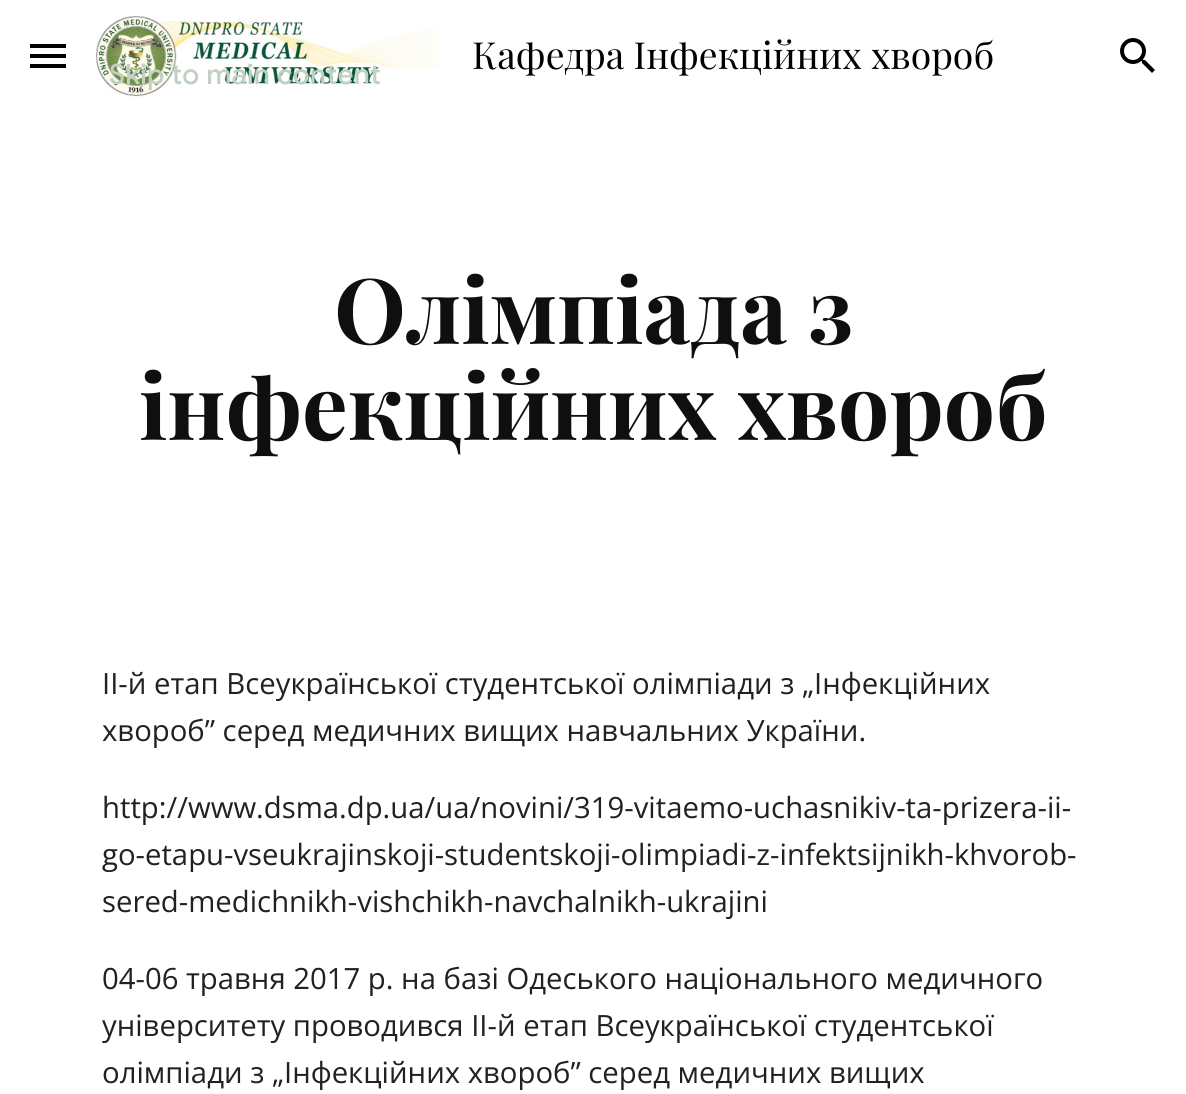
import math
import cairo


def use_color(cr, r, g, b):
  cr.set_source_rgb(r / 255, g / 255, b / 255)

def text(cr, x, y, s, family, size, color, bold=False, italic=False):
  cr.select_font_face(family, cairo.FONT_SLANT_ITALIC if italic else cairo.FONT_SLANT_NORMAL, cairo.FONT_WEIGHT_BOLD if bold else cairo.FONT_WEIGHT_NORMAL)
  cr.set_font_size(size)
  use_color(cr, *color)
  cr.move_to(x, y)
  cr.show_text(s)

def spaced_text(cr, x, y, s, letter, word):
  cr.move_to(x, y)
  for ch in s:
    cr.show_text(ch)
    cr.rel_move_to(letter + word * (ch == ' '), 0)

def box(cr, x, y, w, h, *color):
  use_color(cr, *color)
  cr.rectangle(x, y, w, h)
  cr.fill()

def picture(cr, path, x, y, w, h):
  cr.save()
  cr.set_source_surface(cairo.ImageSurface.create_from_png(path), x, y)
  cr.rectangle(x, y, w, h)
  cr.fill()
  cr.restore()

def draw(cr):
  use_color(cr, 255, 255, 255)
  cr.paint()
  box(cr, 30, 44, 36, 4, 0, 0, 0)
  box(cr, 30, 54, 36, 4, 0, 0, 0)
  box(cr, 30, 64, 36, 4, 0, 0, 0)
  picture(cr, "img_01.png", 96, 16, 344, 81)
  picture(cr, "img_02.png", 1120, 38, 35, 35)
  text(cr, 472, 69, "Кафедра Інфекційних хвороб", "Playfair Display", 37.3, (0, 0, 0))
  text(cr, 334, 344, "Олімпіада з", "Playfair Display", 90.75, (15, 15, 15), bold=True)
  text(cr, 139, 440, "інфекційних хвороб", "Playfair Display", 90.75, (15, 15, 15), bold=True)
  text(cr, 102, 694, "ІІ-й етап Всеукраїнської студентської олімпіади з „Інфекційних", "Open Sans", 29.3, (33, 33, 33))
  text(cr, 102, 741, "хвороб” серед медичних вищих навчальних України.", "Open Sans", 29.3, (33, 33, 33))
  text(cr, 102, 818, "http://www.dsma.dp.ua/ua/novini/319-vitaemo-uchasnikiv-ta-prizera-ii-", "Open Sans", 29.3, (33, 33, 33))
  text(cr, 102, 865, "go-etapu-vseukrajinskoji-studentskoji-olimpiadi-z-infektsijnikh-khvorob-", "Open Sans", 29.3, (33, 33, 33))
  text(cr, 102, 912, "sered-medichnikh-vishchikh-navchalnikh-ukrajini", "Open Sans", 29.3, (33, 33, 33))
  text(cr, 102, 989, "04-06 травня 2017 р. на базі Одеського національного медичного", "Open Sans", 29.3, (33, 33, 33))
  text(cr, 102, 1036, "університету проводився ІІ-й етап Всеукраїнської студентської", "Open Sans", 29.3, (33, 33, 33))
  text(cr, 102, 1083, "олімпіади з „Інфекційних хвороб” серед медичних вищих", "Open Sans", 29.3, (33, 33, 33))
  cr.select_font_face("Google Sans Medium")
  cr.set_font_size(28)
  use_color(cr, 192, 208, 193)
  spaced_text(cr, 109, 84, "Skip to main content", 0.25, 0)


surface = cairo.ImageSurface(cairo.FORMAT_RGB24, 1186, 1094)
cr = cairo.Context(surface)
options = cairo.FontOptions()
options.set_hint_metrics(cairo.HINT_METRICS_OFF)
options.set_hint_style(cairo.HINT_STYLE_NONE)
cr.set_font_options(options)
cr.set_miter_limit(4)
draw(cr)
surface.write_to_png("out.png")
